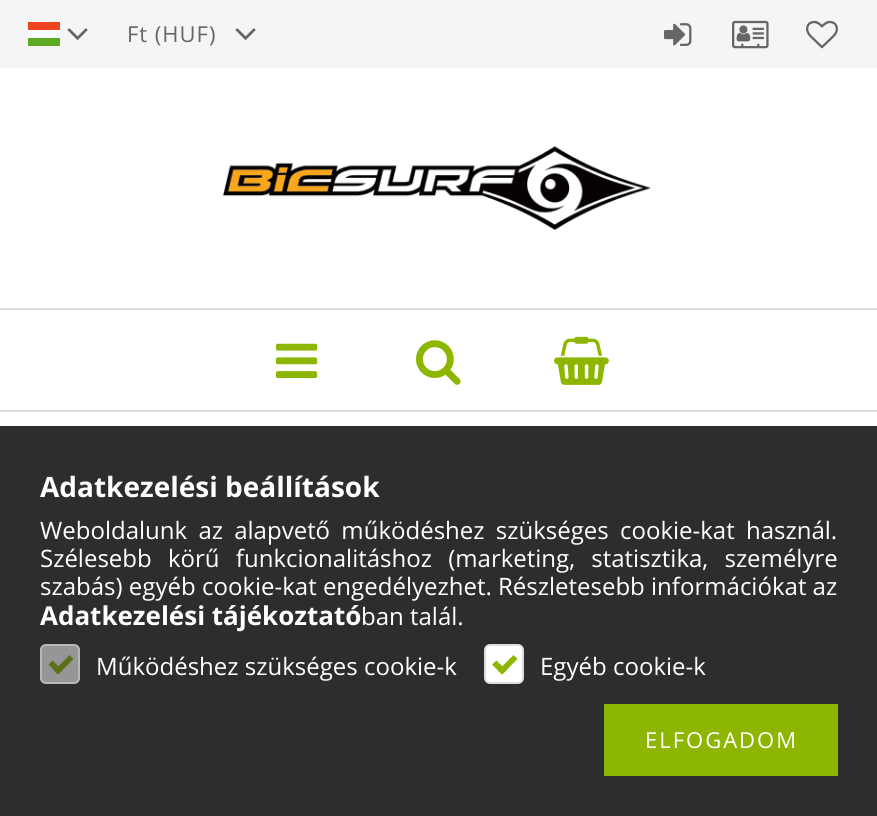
import math
import cairo


def use_color(cr, r, g, b):
  cr.set_source_rgb(r / 255, g / 255, b / 255)

def text(cr, x, y, s, family, size, color, bold=False, italic=False):
  cr.select_font_face(family, cairo.FONT_SLANT_ITALIC if italic else cairo.FONT_SLANT_NORMAL, cairo.FONT_WEIGHT_BOLD if bold else cairo.FONT_WEIGHT_NORMAL)
  cr.set_font_size(size)
  use_color(cr, *color)
  cr.move_to(x, y)
  cr.show_text(s)

def spaced_text(cr, x, y, s, letter, word):
  cr.move_to(x, y)
  for ch in s:
    cr.show_text(ch)
    cr.rel_move_to(letter + word * (ch == ' '), 0)

def box(cr, x, y, w, h, *color):
  use_color(cr, *color)
  cr.rectangle(x, y, w, h)
  cr.fill()

def round_rect(cr, x, y, w, h, r):
  cr.new_sub_path()
  for i, (u, v) in enumerate([(x + w - r, y + h - r), (x + r, y + h - r), (x + r, y + r), (x + w - r, y + r)]):
    cr.arc(u, v, r, i * math.pi / 2, (i + 1) * math.pi / 2)
  cr.close_path()

def picture(cr, path, x, y, w, h):
  cr.save()
  cr.set_source_surface(cairo.ImageSurface.create_from_png(path), x, y)
  cr.rectangle(x, y, w, h)
  cr.fill()
  cr.restore()

def draw(cr):
  use_color(cr, 255, 255, 255)
  cr.paint()
  box(cr, 0, 426, 877, 390, 45, 45, 45)
  box(cr, 0, 0, 877, 68, 245, 245, 245)
  picture(cr, "img_01.png", 28, 22, 32, 24)
  picture(cr, "img_02.png", 67, 28, 21, 12)
  picture(cr, "img_02.png", 235, 28, 21, 12)
  picture(cr, "img_03.png", 664, 23, 28, 23)
  picture(cr, "img_04.png", 732, 20, 37, 29)
  picture(cr, "img_05.png", 806, 20, 32, 29)
  picture(cr, "img_06.png", 223, 146, 428, 85)
  box(cr, 0, 308, 877, 2, 221, 221, 221)
  box(cr, 0, 410, 877, 2, 221, 221, 221)
  picture(cr, "img_07.png", 276, 343, 42, 35)
  picture(cr, "img_08.png", 416, 340, 45, 45)
  picture(cr, "img_09.png", 554, 336, 55, 49)
  cr.set_source_rgba(1, 1, 1, 0.5)
  round_rect(cr, 40, 644, 40, 40, 6)
  cr.fill()
  round_rect(cr, 41, 645, 38, 38, 5)
  cr.set_source_rgba(0.867, 0.867, 0.867, 0.5)
  cr.stroke()
  use_color(cr, 93, 114, 23)
  cr.new_path()
  cr.move_to(54, 670.5)
  cr.line_to(69.5, 655)
  cr.line_to(73.5, 659)
  cr.line_to(58, 674.5)
  cr.close_path()
  cr.fill()
  cr.new_path()
  cr.move_to(48.5, 664.5)
  cr.line_to(52.5, 660.5)
  cr.line_to(62.5, 670.5)
  cr.line_to(58, 674.5)
  cr.close_path()
  cr.fill()
  use_color(cr, 255, 255, 255)
  round_rect(cr, 485, 645, 38, 38, 5)
  cr.fill_preserve()
  use_color(cr, 221, 221, 221)
  cr.stroke()
  use_color(cr, 141, 182, 0)
  cr.new_path()
  cr.move_to(498, 670.5)
  cr.line_to(513.5, 655)
  cr.line_to(517.5, 659)
  cr.line_to(502, 674.5)
  cr.close_path()
  cr.fill()
  cr.new_path()
  cr.move_to(492, 664.5)
  cr.line_to(496.5, 660.5)
  cr.line_to(506.5, 670.5)
  cr.line_to(502, 674.5)
  cr.close_path()
  cr.fill()
  box(cr, 604, 704, 234, 72, 141, 182, 0)
  cr.select_font_face("Open Sans")
  cr.set_font_size(22)
  use_color(cr, 102, 102, 102)
  spaced_text(cr, 127, 42, "Ft (HUF)", 1, 0)
  text(cr, 40, 497, "Adatkezelési beállítások", "Open Sans", 28, (255, 255, 255), bold=True)
  cr.select_font_face("Open Sans")
  cr.set_font_size(24)
  spaced_text(cr, 40, 539, "Weboldalunk az alapvető működéshez szükséges cookie-kat használ.", 0, 5)
  spaced_text(cr, 40, 567, "Szélesebb körű funkcionalitáshoz (marketing, statisztika, személyre", 0, 10)
  text(cr, 40, 595, "szabás) egyéb cookie-kat engedélyezhet. Részletesebb információkat az", "Open Sans", 24, (255, 255, 255))
  text(cr, 40, 625, "Adatkezelési tájékoztató", "Open Sans", 26, (255, 255, 255), bold=True)
  text(cr, 361, 625, "ban talál.", "Open Sans", 24, (255, 255, 255))
  text(cr, 96, 675, "Működéshez szükséges cookie-k", "Open Sans", 24, (255, 255, 255))
  text(cr, 540, 675, "Egyéb cookie-k", "Open Sans", 24, (255, 255, 255))
  cr.set_font_size(22)
  spaced_text(cr, 645, 748, "ELFOGADOM", 2, 0)


surface = cairo.ImageSurface(cairo.FORMAT_RGB24, 877, 816)
cr = cairo.Context(surface)
options = cairo.FontOptions()
options.set_hint_metrics(cairo.HINT_METRICS_OFF)
options.set_hint_style(cairo.HINT_STYLE_NONE)
cr.set_font_options(options)
cr.set_miter_limit(4)
draw(cr)
surface.write_to_png("out.png")
